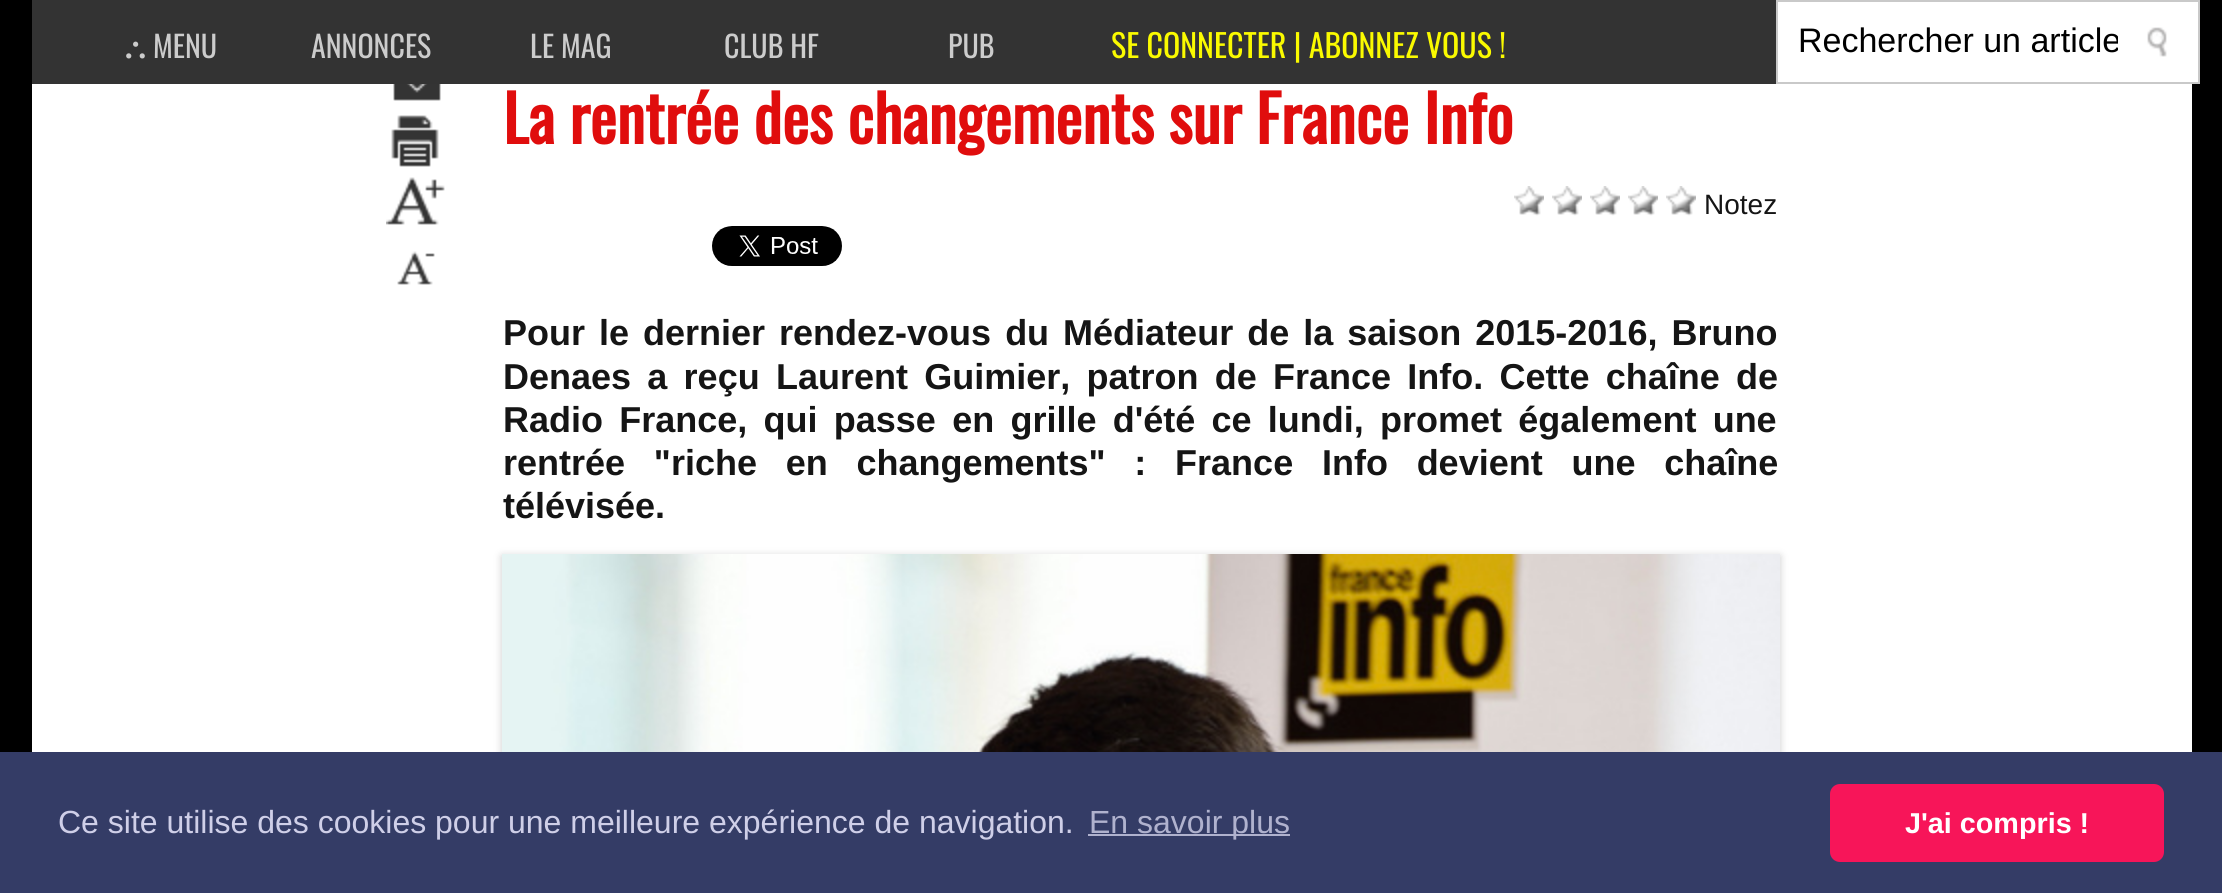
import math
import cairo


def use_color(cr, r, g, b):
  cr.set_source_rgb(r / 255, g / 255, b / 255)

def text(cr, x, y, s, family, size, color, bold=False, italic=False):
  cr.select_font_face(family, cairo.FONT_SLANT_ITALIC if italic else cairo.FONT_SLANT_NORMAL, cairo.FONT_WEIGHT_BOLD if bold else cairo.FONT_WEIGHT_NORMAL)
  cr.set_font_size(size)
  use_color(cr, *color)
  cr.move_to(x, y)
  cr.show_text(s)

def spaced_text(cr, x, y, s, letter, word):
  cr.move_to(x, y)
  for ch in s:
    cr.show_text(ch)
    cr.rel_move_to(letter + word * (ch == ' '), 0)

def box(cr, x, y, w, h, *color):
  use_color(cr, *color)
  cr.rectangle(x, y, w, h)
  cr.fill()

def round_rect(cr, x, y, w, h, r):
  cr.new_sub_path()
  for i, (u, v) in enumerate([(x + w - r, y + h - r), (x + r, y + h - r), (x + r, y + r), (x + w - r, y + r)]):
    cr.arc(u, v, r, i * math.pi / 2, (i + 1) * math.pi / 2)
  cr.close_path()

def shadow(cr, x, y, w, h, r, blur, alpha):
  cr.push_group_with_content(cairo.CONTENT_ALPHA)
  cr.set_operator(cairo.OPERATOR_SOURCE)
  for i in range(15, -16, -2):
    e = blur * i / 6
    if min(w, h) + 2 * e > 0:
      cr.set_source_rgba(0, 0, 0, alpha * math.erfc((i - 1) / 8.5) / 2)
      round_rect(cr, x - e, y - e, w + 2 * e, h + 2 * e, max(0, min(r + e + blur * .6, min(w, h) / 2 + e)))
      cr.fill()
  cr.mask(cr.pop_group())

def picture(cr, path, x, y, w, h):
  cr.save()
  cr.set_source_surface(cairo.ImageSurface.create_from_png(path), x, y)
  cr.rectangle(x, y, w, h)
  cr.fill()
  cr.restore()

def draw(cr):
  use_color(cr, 0, 0, 0)
  cr.paint()
  box(cr, 32, 0, 1744, 84, 51, 51, 51)
  box(cr, 1778, 2, 420, 80, 255, 255, 255)
  picture(cr, "img_01.png", 2147, 27, 20, 30)
  cr.rectangle(1777, 1, 422, 82)
  use_color(cr, 201, 201, 201)
  cr.stroke()
  box(cr, 32, 84, 2160, 668, 255, 255, 255)
  picture(cr, "img_02.png", 393, 84, 48, 17)
  picture(cr, "img_03.png", 391, 115, 48, 52)
  picture(cr, "img_04.png", 386, 177, 59, 48)
  picture(cr, "img_05.png", 397, 251, 38, 34)
  picture(cr, "img_06.png", 1514, 186, 30, 30)
  picture(cr, "img_06.png", 1552, 186, 30, 30)
  picture(cr, "img_06.png", 1590, 186, 30, 30)
  picture(cr, "img_06.png", 1628, 186, 30, 30)
  picture(cr, "img_06.png", 1666, 186, 30, 30)
  picture(cr, "img_07.png", 712, 226, 130, 40)
  use_color(cr, 204, 204, 204)
  shadow(cr, 502, 556, 1278, 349, 0, 4, 1)
  picture(cr, "img_08.png", 502, 554, 1278, 198)
  box(cr, 0, 752, 2222, 141, 52, 60, 102)
  box(cr, 1088, 834, 202, 2, 176, 178, 206)
  use_color(cr, 247, 21, 89)
  round_rect(cr, 1830, 784, 334, 78, 10)
  cr.fill()
  text(cr, 125, 58, "⛬", "FreeSans", 30, (204, 204, 204))
  text(cr, 153, 58, "MENU", "Oswald", 30, (204, 204, 204))
  text(cr, 311, 58, "ANNONCES", "Oswald", 30, (204, 204, 204))
  text(cr, 530, 58, "LE MAG", "Oswald", 30, (204, 204, 204))
  text(cr, 724, 58, "CLUB HF", "Oswald", 30, (204, 204, 204))
  text(cr, 948, 58, "PUB", "Oswald", 30, (204, 204, 204))
  text(cr, 1111, 58, "SE CONNECTER | ABONNEZ VOUS !", "Oswald", 32, (250, 250, 0))
  cr.save()
  cr.rectangle(1798, 22, 320, 40)
  cr.clip()
  text(cr, 1798, 52, "Rechercher un article", "Liberation Sans", 34, (0, 0, 0))
  cr.restore()
  text(cr, 503, 144, "La rentrée des changements sur France Info", "Oswald", 64, (224, 13, 13), bold=True)
  text(cr, 1704, 214, "Notez", "Liberation Sans", 28, (21, 21, 21))
  cr.select_font_face("Liberation Sans", cairo.FONT_SLANT_NORMAL, cairo.FONT_WEIGHT_BOLD)
  cr.set_font_size(36)
  spaced_text(cr, 503, 345, "Pour le dernier rendez-vous du Médiateur de la saison 2015-2016, Bruno", 0, 4)
  spaced_text(cr, 503, 389, "Denaes a reçu Laurent Guimier, patron de France Info. Cette chaîne de", 0, 6.25)
  spaced_text(cr, 503, 432, "Radio France, qui passe en grille d'été ce lundi, promet également une", 0, 6.25)
  spaced_text(cr, 503, 475, "rentrée \"riche en changements\" : France Info devient une chaîne", 0, 18.75)
  text(cr, 503, 518, "télévisée.", "Liberation Sans", 36, (21, 21, 21), bold=True)
  text(cr, 58, 833, "Ce site utilise des cookies pour une meilleure expérience de navigation.", "Liberation Sans", 32, (207, 207, 232))
  text(cr, 1089, 833, "En savoir plus", "Liberation Sans", 32, (176, 178, 206))
  text(cr, 1905, 833, "J'ai compris !", "Liberation Sans", 28.75, (255, 255, 255), bold=True)


surface = cairo.ImageSurface(cairo.FORMAT_RGB24, 2222, 893)
cr = cairo.Context(surface)
options = cairo.FontOptions()
options.set_hint_metrics(cairo.HINT_METRICS_OFF)
options.set_hint_style(cairo.HINT_STYLE_NONE)
cr.set_font_options(options)
cr.set_miter_limit(4)
draw(cr)
surface.write_to_png("out.png")
